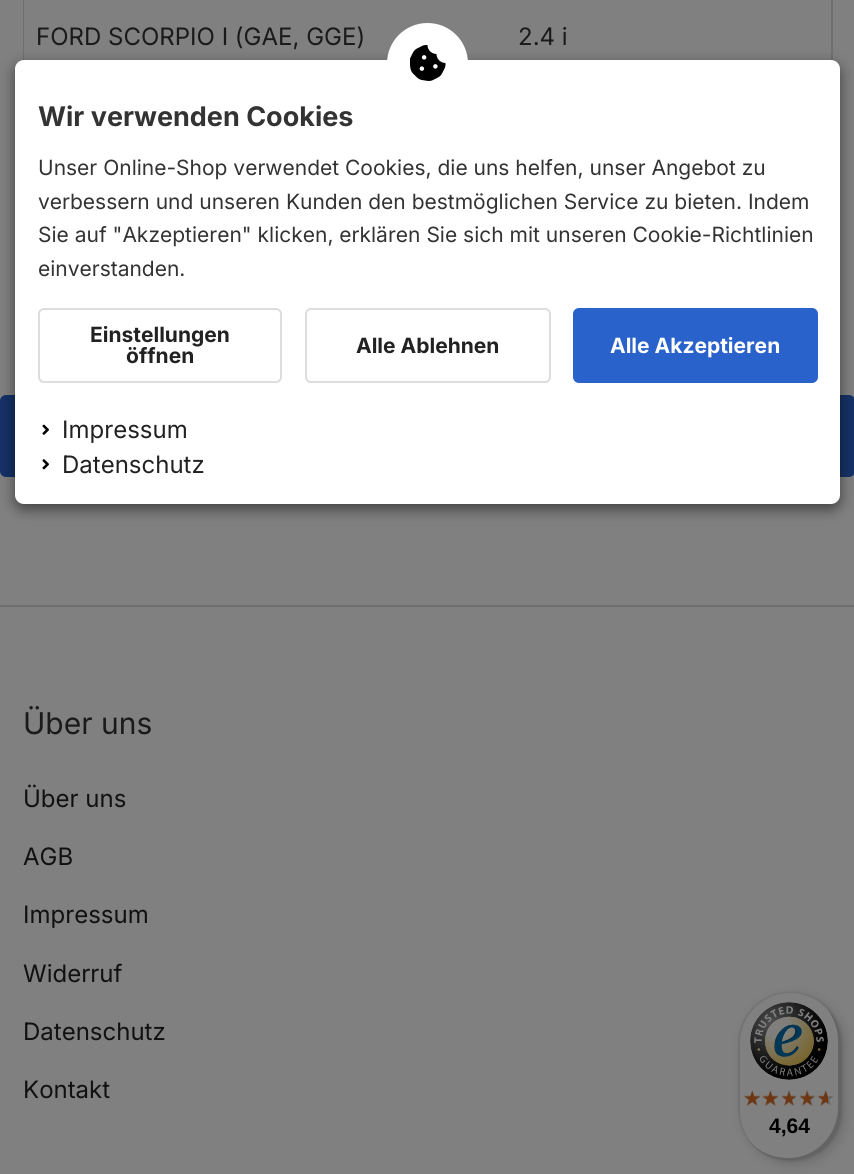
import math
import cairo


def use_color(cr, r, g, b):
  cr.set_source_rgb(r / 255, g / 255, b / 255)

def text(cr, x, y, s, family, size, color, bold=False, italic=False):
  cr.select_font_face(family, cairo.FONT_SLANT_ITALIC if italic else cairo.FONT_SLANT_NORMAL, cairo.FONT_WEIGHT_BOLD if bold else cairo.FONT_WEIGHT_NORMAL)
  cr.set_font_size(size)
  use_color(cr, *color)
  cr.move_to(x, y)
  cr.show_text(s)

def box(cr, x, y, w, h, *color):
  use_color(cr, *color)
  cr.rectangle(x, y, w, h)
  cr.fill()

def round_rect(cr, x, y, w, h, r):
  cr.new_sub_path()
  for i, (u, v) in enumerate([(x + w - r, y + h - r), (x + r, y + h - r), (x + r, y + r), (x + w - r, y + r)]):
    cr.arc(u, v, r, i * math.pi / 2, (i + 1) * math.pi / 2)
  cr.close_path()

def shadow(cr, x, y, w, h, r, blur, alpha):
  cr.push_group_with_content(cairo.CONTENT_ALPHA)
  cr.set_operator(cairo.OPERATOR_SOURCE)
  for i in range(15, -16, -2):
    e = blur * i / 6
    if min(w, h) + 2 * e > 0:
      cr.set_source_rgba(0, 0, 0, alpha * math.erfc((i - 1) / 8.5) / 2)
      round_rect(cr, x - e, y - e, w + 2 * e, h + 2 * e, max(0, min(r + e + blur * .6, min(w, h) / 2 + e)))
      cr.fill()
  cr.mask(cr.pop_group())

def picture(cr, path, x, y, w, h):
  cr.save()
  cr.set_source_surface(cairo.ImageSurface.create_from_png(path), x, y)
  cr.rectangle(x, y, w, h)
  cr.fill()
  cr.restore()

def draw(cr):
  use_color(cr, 128, 128, 128)
  cr.paint()
  cr.rectangle(24, -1, 808, 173)
  use_color(cr, 111, 111, 111)
  cr.stroke()
  box(cr, 24, 0, 1, 60, 128, 128, 128)
  use_color(cr, 21, 49, 102)
  round_rect(cr, 0, 395, 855, 82, 6)
  cr.fill()
  use_color(cr, 0, 0, 0)
  shadow(cr, 15, 65, 825, 444, 9, 7, 0.5)
  use_color(cr, 255, 255, 255)
  round_rect(cr, 15, 60, 825, 444, 9)
  cr.fill()
  round_rect(cr, 387, 23, 81, 90, 40.5)
  cr.fill()
  picture(cr, "img_01.png", 410, 45, 36, 36)
  round_rect(cr, 39, 309, 242, 73, 5)
  use_color(cr, 221, 221, 221)
  cr.stroke()
  round_rect(cr, 306, 309, 244, 73, 5)
  cr.stroke()
  use_color(cr, 42, 98, 204)
  round_rect(cr, 574, 309, 243, 73, 5)
  cr.fill_preserve()
  cr.stroke()
  picture(cr, "img_02.png", 42, 424, 7, 11)
  picture(cr, "img_03.png", 42, 459, 7, 11)
  box(cr, 0, 605, 854, 2, 111, 111, 111)
  use_color(cr, 0, 0, 0)
  shadow(cr, 743, 996, 102, 168, 51, 6, 0.15)
  shadow(cr, 740, 993, 102, 168, 51, 1.5, 0.15)
  use_color(cr, 128, 128, 128)
  round_rect(cr, 738, 992, 102, 168, 51)
  cr.fill()
  cr.set_source_rgba(0, 0, 0, 0.1)
  cr.new_path()
  cr.move_to(790, 993)
  cr.curve_to(800, 993, 809, 996, 817, 1000)
  cr.curve_to(809, 995, 799, 992, 789, 992)
  cr.curve_to(761, 992, 738, 1015, 738, 1043)
  cr.line_to(738, 1109)
  cr.curve_to(738, 1127, 747, 1143, 761, 1152)
  cr.curve_to(748, 1142, 740, 1127, 740, 1110)
  cr.line_to(740, 1044)
  cr.curve_to(740, 1016, 762, 993, 790, 993)
  cr.close_path()
  cr.fill()
  cr.set_source_rgba(0, 0, 0, 0.2)
  cr.new_path()
  cr.move_to(750, 1142)
  cr.curve_to(759, 1153, 773, 1160, 789, 1160)
  cr.curve_to(817, 1160, 840, 1137, 840, 1109)
  cr.line_to(840, 1043)
  cr.curve_to(840, 1030, 835, 1018, 827, 1009)
  cr.curve_to(834, 1018, 838, 1029, 838, 1041)
  cr.line_to(838, 1107)
  cr.curve_to(838, 1135, 816, 1158, 788, 1158)
  cr.curve_to(773, 1158, 759, 1152, 750, 1142)
  cr.close_path()
  cr.fill()
  cr.set_source_rgba(0.098, 0.098, 0.098, 0.2)
  cr.new_path()
  cr.move_to(750, 1142)
  cr.curve_to(760, 1153, 774, 1160, 789, 1160)
  cr.curve_to(817, 1160, 840, 1137, 840, 1109)
  cr.line_to(840, 1043)
  cr.curve_to(840, 1031, 836, 1020, 829, 1011)
  cr.curve_to(835, 1020, 839, 1030, 839, 1042)
  cr.line_to(839, 1108)
  cr.curve_to(839, 1136, 816, 1159, 788, 1159)
  cr.curve_to(773, 1159, 760, 1153, 750, 1142)
  cr.close_path()
  cr.fill()
  cr.set_source_rgba(0.502, 0.502, 0.502, 0.3)
  cr.new_path()
  cr.move_to(750, 1142)
  cr.curve_to(760, 1153, 774, 1160, 789, 1160)
  cr.curve_to(817, 1160, 840, 1137, 840, 1109)
  cr.line_to(840, 1043)
  cr.curve_to(840, 1028, 833, 1014, 822, 1004)
  cr.curve_to(833, 1014, 839, 1027, 839, 1042)
  cr.line_to(839, 1108)
  cr.curve_to(839, 1136, 816, 1159, 788, 1159)
  cr.curve_to(773, 1159, 760, 1153, 750, 1142)
  cr.close_path()
  cr.fill()
  picture(cr, "img_04.png", 750, 1002, 78, 78)
  picture(cr, "img_05.png", 744, 1091, 16, 14)
  picture(cr, "img_06.png", 764, 1091, 14, 15)
  picture(cr, "img_07.png", 782, 1091, 14, 14)
  picture(cr, "img_08.png", 800, 1090, 16, 16)
  picture(cr, "img_09.png", 818, 1091, 16, 14)
  picture(cr, "img_10.png", 744, 1090, 16, 16)
  picture(cr, "img_11.png", 762, 1090, 16, 16)
  picture(cr, "img_12.png", 782, 1090, 14, 16)
  picture(cr, "img_13.png", 800, 1090, 14, 16)
  picture(cr, "img_14.png", 818, 1090, 10, 16)
  text(cr, 36, 45, "FORD SCORPIO I (GAE, GGE)", "Inter", 24, (26, 26, 26))
  text(cr, 518, 45, "2.4 i", "Inter", 24, (26, 26, 26))
  text(cr, 38, 126, "Wir verwenden Cookies", "Inter", 27, (51, 51, 51), bold=True)
  text(cr, 38, 175, "Unser Online-Shop verwendet Cookies, die uns helfen, unser Angebot zu", "Inter", 21, (51, 51, 51))
  text(cr, 38, 209, "verbessern und unseren Kunden den bestmöglichen Service zu bieten. Indem", "Inter", 21, (51, 51, 51))
  text(cr, 38, 242, "Sie auf \"Akzeptieren\" klicken, erklären Sie sich mit unseren Cookie-Richtlinien", "Inter", 21, (51, 51, 51))
  text(cr, 38, 276, "einverstanden.", "Inter", 21, (51, 51, 51))
  text(cr, 90, 342, "Einstellungen", "Inter", 21, (34, 34, 34), bold=True)
  text(cr, 126, 363, "öffnen", "Inter", 21, (34, 34, 34), bold=True)
  text(cr, 356, 353, "Alle Ablehnen", "Inter", 21, (34, 34, 34), bold=True)
  text(cr, 610, 353, "Alle Akzeptieren", "Inter", 21, (255, 255, 255), bold=True)
  text(cr, 62, 438, "Impressum", "Inter", 24, (34, 34, 34))
  text(cr, 62, 473, "Datenschutz", "Inter", 24, (34, 34, 34))
  text(cr, 23, 734, "Über uns", "Inter", 30, (26, 26, 26))
  text(cr, 23, 807, "Über uns", "Inter", 24, (17, 17, 17))
  text(cr, 23, 865, "AGB", "Inter", 24, (17, 17, 17))
  text(cr, 23, 923, "Impressum", "Inter", 24, (17, 17, 17))
  text(cr, 23, 982, "Widerruf", "Inter", 24, (17, 17, 17))
  text(cr, 23, 1040, "Datenschutz", "Inter", 24, (17, 17, 17))
  text(cr, 23, 1098, "Kontakt", "Inter", 24, (17, 17, 17))
  text(cr, 769, 1133, "4,64", "Liberation Sans", 21, (0, 0, 0), bold=True)


surface = cairo.ImageSurface(cairo.FORMAT_RGB24, 854, 1174)
cr = cairo.Context(surface)
options = cairo.FontOptions()
options.set_hint_metrics(cairo.HINT_METRICS_OFF)
options.set_hint_style(cairo.HINT_STYLE_NONE)
cr.set_font_options(options)
cr.set_miter_limit(4)
draw(cr)
surface.write_to_png("out.png")
